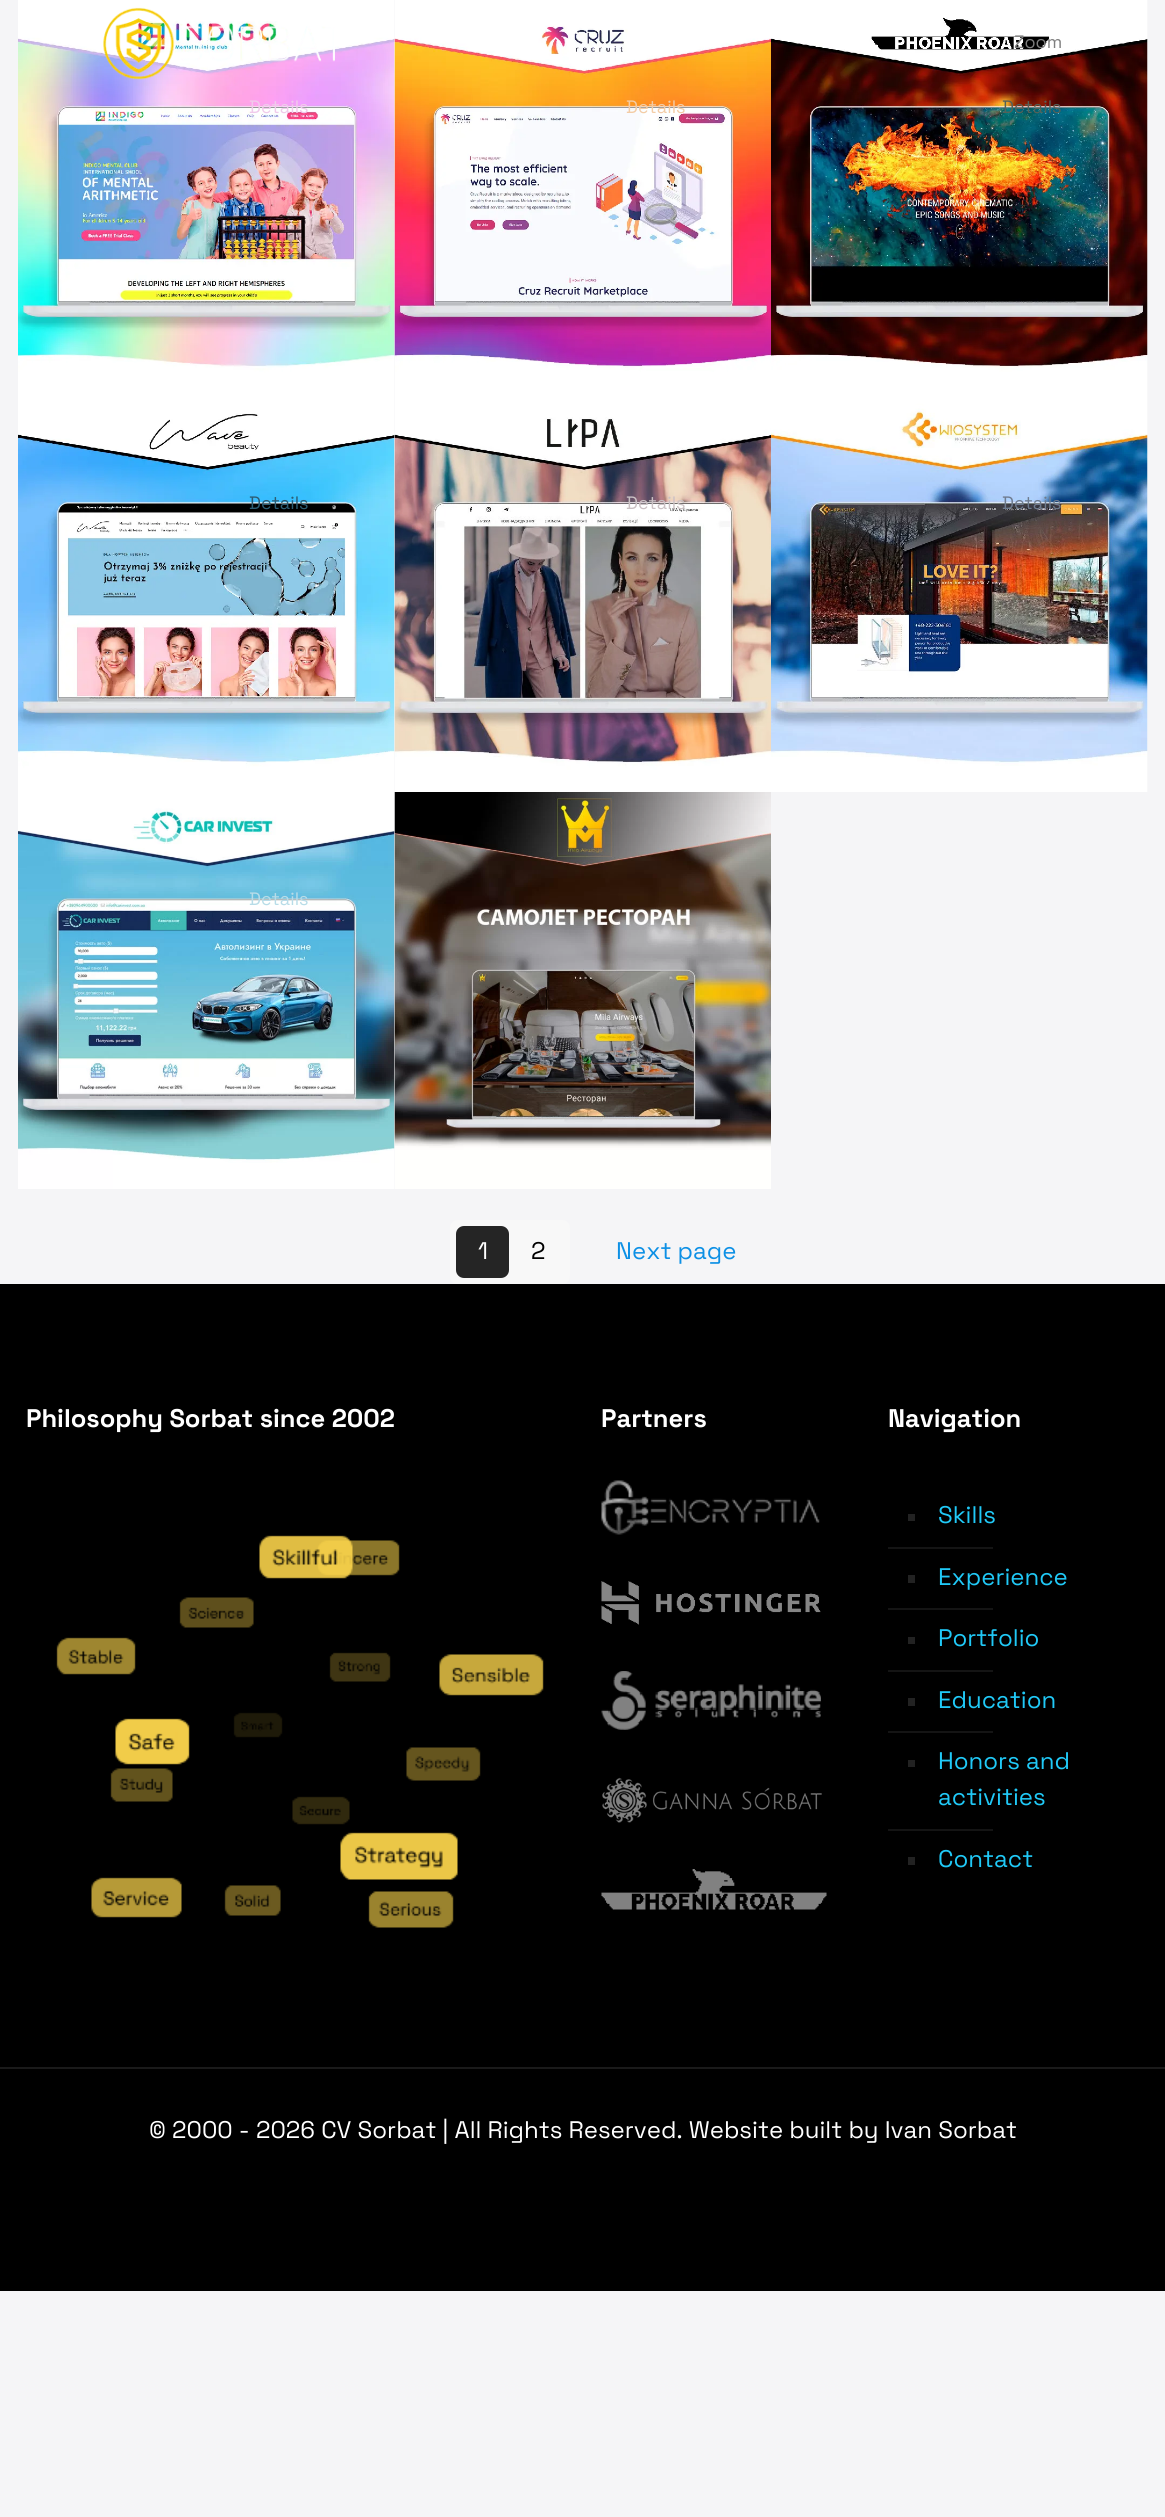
import math
import cairo


def use_color(cr, r, g, b):
  cr.set_source_rgb(r / 255, g / 255, b / 255)

def text(cr, x, y, s, family, size, color, bold=False, italic=False):
  cr.select_font_face(family, cairo.FONT_SLANT_ITALIC if italic else cairo.FONT_SLANT_NORMAL, cairo.FONT_WEIGHT_BOLD if bold else cairo.FONT_WEIGHT_NORMAL)
  cr.set_font_size(size)
  use_color(cr, *color)
  cr.move_to(x, y)
  cr.show_text(s)

def box(cr, x, y, w, h, *color):
  use_color(cr, *color)
  cr.rectangle(x, y, w, h)
  cr.fill()

def round_rect(cr, x, y, w, h, r):
  cr.new_sub_path()
  for i, (u, v) in enumerate([(x + w - r, y + h - r), (x + r, y + h - r), (x + r, y + r), (x + w - r, y + r)]):
    cr.arc(u, v, r, i * math.pi / 2, (i + 1) * math.pi / 2)
  cr.close_path()

def picture(cr, path, x, y, w, h):
  cr.save()
  cr.set_source_surface(cairo.ImageSurface.create_from_png(path), x, y)
  cr.rectangle(x, y, w, h)
  cr.fill()
  cr.restore()

def draw(cr):
  use_color(cr, 245, 245, 247)
  cr.paint()
  picture(cr, "img_02.png", 18, 0, 377, 396)
  picture(cr, "img_01.png", 103, 7, 232, 73)
  picture(cr, "img_03.png", 394, 0, 377, 396)
  picture(cr, "img_04.png", 771, 0, 377, 396)
  picture(cr, "img_05.png", 18, 396, 377, 396)
  picture(cr, "img_06.png", 394, 396, 377, 396)
  picture(cr, "img_07.png", 771, 396, 377, 396)
  picture(cr, "img_08.png", 18, 792, 377, 397)
  picture(cr, "img_09.png", 394, 792, 377, 397)
  use_color(cr, 248, 248, 248)
  round_rect(cr, 450, 1220, 120, 64, 8)
  cr.fill()
  use_color(cr, 37, 37, 37)
  round_rect(cr, 456, 1226, 53, 52, 8)
  cr.fill()
  box(cr, 0, 1284, 1165, 1007, 0, 0, 0)
  picture(cr, "img_10.png", 56, 1535, 488, 393)
  picture(cr, "img_11.png", 601, 1480, 219, 55)
  picture(cr, "img_12.png", 601, 1581, 220, 44)
  picture(cr, "img_13.png", 601, 1671, 220, 59)
  picture(cr, "img_14.png", 602, 1777, 220, 46)
  picture(cr, "img_15.png", 601, 1869, 226, 41)
  box(cr, 908, 1514, 7, 7, 34, 34, 34)
  box(cr, 888, 1547, 105, 2, 20, 20, 20)
  box(cr, 908, 1575, 7, 8, 34, 34, 34)
  box(cr, 888, 1608, 105, 2, 20, 20, 20)
  box(cr, 908, 1637, 7, 7, 34, 34, 34)
  box(cr, 888, 1670, 105, 2, 20, 20, 20)
  box(cr, 908, 1698, 7, 8, 34, 34, 34)
  box(cr, 888, 1731, 105, 2, 20, 20, 20)
  box(cr, 908, 1760, 7, 7, 34, 34, 34)
  box(cr, 888, 1829, 105, 2, 20, 20, 20)
  box(cr, 908, 1857, 7, 8, 34, 34, 34)
  box(cr, 0, 2067, 1165, 2, 26, 26, 26)
  text(cr, 249, 113, "Details", "Space Grotesk", 18, (240, 202, 235))
  text(cr, 626, 113, "Details", "Space Grotesk", 18, (243, 204, 166))
  text(cr, 1014, 48, "Zoom", "Space Grotesk", 18, (126, 126, 126))
  text(cr, 1002, 113, "Details", "Space Grotesk", 18, (84, 97, 89))
  text(cr, 249, 509, "Details", "Space Grotesk", 18, (44, 93, 116))
  text(cr, 626, 509, "Details", "Space Grotesk", 18, (203, 193, 196))
  text(cr, 1002, 509, "Details", "Space Grotesk", 18, (110, 123, 143))
  text(cr, 249, 905, "Details", "Space Grotesk", 18, (184, 220, 232))
  text(cr, 478, 1259, "1", "Space Grotesk", 24, (255, 255, 255))
  text(cr, 531, 1259, "2", "Space Grotesk", 24, (0, 0, 0))
  text(cr, 616, 1259, "Next page", "Space Grotesk", 24, (13, 144, 229))
  text(cr, 26, 1427, "Philosophy Sorbat since 2002", "Space Grotesk", 25.5, (255, 255, 255), bold=True)
  text(cr, 601, 1427, "Partners", "Space Grotesk", 25.5, (255, 255, 255), bold=True)
  text(cr, 888, 1427, "Navigation", "Space Grotesk", 25.5, (255, 255, 255), bold=True)
  text(cr, 938, 1523, "Skills", "Space Grotesk", 24, (32, 201, 247))
  text(cr, 938, 1585, "Experience", "Space Grotesk", 24, (32, 201, 247))
  text(cr, 938, 1646, "Portfolio", "Space Grotesk", 24, (32, 201, 247))
  text(cr, 938, 1708, "Education", "Space Grotesk", 24, (32, 201, 247))
  text(cr, 938, 1769, "Honors and", "Space Grotesk", 24, (32, 201, 247))
  text(cr, 938, 1805, "activities", "Space Grotesk", 24, (32, 201, 247))
  text(cr, 938, 1867, "Contact", "Space Grotesk", 24, (32, 201, 247))
  text(cr, 149, 2138, "© 2000 - 2026 CV Sorbat | All Rights Reserved. Website built by Ivan Sorbat", "Space Grotesk", 24, (255, 255, 255))


surface = cairo.ImageSurface(cairo.FORMAT_RGB24, 1165, 2517)
cr = cairo.Context(surface)
options = cairo.FontOptions()
options.set_hint_metrics(cairo.HINT_METRICS_OFF)
options.set_hint_style(cairo.HINT_STYLE_NONE)
cr.set_font_options(options)
cr.set_miter_limit(4)
draw(cr)
surface.write_to_png("out.png")
